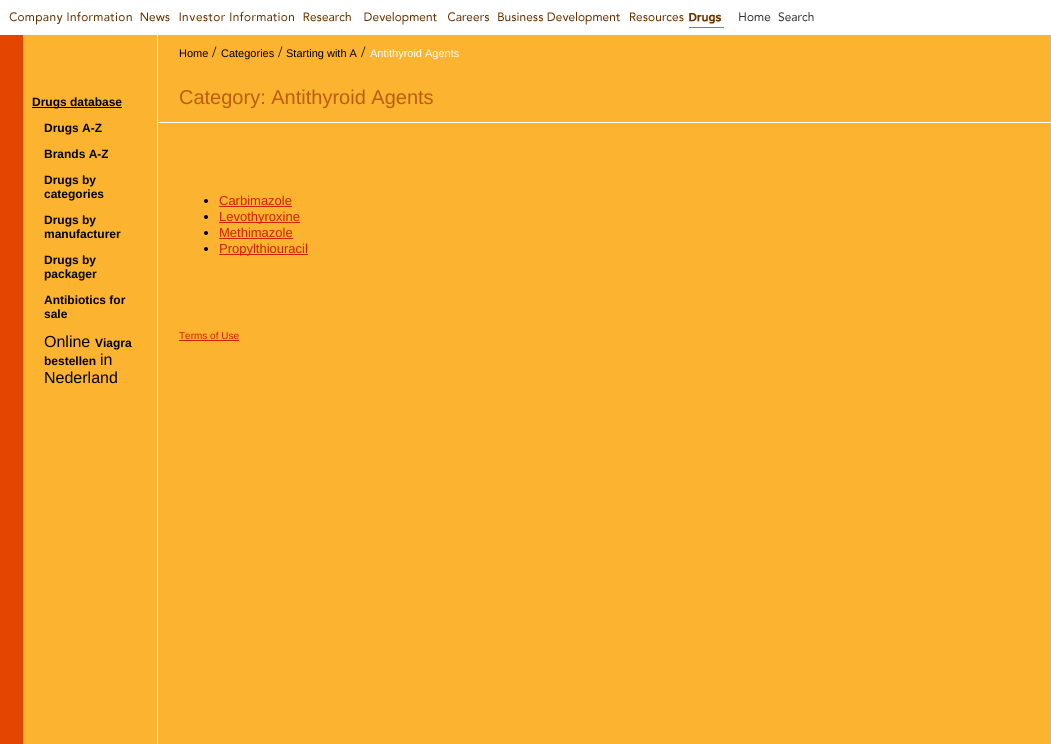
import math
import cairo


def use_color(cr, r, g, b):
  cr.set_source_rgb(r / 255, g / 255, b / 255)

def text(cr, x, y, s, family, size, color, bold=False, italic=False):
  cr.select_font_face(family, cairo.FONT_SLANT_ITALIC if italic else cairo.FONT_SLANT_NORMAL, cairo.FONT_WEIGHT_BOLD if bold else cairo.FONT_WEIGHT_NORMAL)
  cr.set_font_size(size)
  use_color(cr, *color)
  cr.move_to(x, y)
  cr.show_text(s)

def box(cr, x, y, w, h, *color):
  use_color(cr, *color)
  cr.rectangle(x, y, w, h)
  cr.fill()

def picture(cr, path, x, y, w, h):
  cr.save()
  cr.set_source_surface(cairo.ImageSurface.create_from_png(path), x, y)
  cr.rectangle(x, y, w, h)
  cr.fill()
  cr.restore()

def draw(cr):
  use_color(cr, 251, 179, 48)
  cr.paint()
  picture(cr, "img_01.png", 0, 35, 158, 709)
  box(cr, 0, 0, 1051, 35, 255, 255, 255)
  picture(cr, "img_02.png", 9, 11, 123, 14)
  picture(cr, "img_03.png", 140, 12, 30, 10)
  picture(cr, "img_04.png", 179, 11, 115, 11)
  picture(cr, "img_05.png", 303, 12, 48, 10)
  picture(cr, "img_06.png", 364, 12, 73, 13)
  picture(cr, "img_07.png", 448, 12, 41, 10)
  picture(cr, "img_08.png", 498, 12, 122, 13)
  picture(cr, "img_09.png", 630, 12, 54, 10)
  picture(cr, "img_10.png", 689, 13, 35, 15)
  picture(cr, "img_11.png", 739, 12, 32, 10)
  picture(cr, "img_12.png", 778, 12, 36, 10)
  box(cr, 158, 122, 893, 1, 255, 255, 255)
  box(cr, 32, 107, 90, 1, 0, 0, 0)
  cr.arc(206, 201, 2, 0, 2 * math.pi)
  cr.fill()
  box(cr, 219, 206, 73, 1, 208, 32, 0)
  use_color(cr, 0, 0, 0)
  cr.arc(206, 217, 2, 0, 2 * math.pi)
  cr.fill()
  box(cr, 219, 222, 81, 1, 208, 32, 0)
  use_color(cr, 0, 0, 0)
  cr.arc(206, 233, 2, 0, 2 * math.pi)
  cr.fill()
  box(cr, 219, 238, 74, 1, 208, 32, 0)
  use_color(cr, 0, 0, 0)
  cr.arc(206, 249, 2, 0, 2 * math.pi)
  cr.fill()
  box(cr, 219, 254, 89, 1, 208, 32, 0)
  box(cr, 179, 340, 60, 1, 208, 32, 0)
  text(cr, 179, 57, "Home", "Liberation Sans", 11, (0, 0, 0))
  text(cr, 212, 57, "/", "Liberation Serif", 16, (0, 0, 0))
  text(cr, 221, 57, "Categories", "Liberation Sans", 11, (0, 0, 0))
  text(cr, 278, 57, "/", "Liberation Serif", 16, (0, 0, 0))
  text(cr, 286, 57, "Starting with A", "Liberation Sans", 11, (0, 0, 0))
  text(cr, 361, 57, "/", "Liberation Serif", 16, (0, 0, 0))
  text(cr, 370, 57, "Antithyroid Agents", "Liberation Sans", 11, (255, 255, 255))
  text(cr, 179, 104, "Category: Antithyroid Agents", "Liberation Sans", 20, (186, 94, 16))
  text(cr, 32, 106, "Drugs database", "Liberation Sans", 12, (0, 0, 0), bold=True)
  text(cr, 44, 132, "Drugs A-Z", "Liberation Sans", 12, (0, 0, 0), bold=True)
  text(cr, 44, 158, "Brands A-Z", "Liberation Sans", 12, (0, 0, 0), bold=True)
  text(cr, 44, 184, "Drugs by", "Liberation Sans", 12, (0, 0, 0), bold=True)
  text(cr, 44, 198, "categories", "Liberation Sans", 12, (0, 0, 0), bold=True)
  text(cr, 44, 224, "Drugs by", "Liberation Sans", 12, (0, 0, 0), bold=True)
  text(cr, 44, 238, "manufacturer", "Liberation Sans", 12, (0, 0, 0), bold=True)
  text(cr, 44, 264, "Drugs by", "Liberation Sans", 12, (0, 0, 0), bold=True)
  text(cr, 44, 278, "packager", "Liberation Sans", 12, (0, 0, 0), bold=True)
  text(cr, 44, 304, "Antibiotics for", "Liberation Sans", 12, (0, 0, 0), bold=True)
  text(cr, 44, 318, "sale", "Liberation Sans", 12, (0, 0, 0), bold=True)
  text(cr, 44, 347, "Online", "Liberation Sans", 16, (0, 0, 0))
  text(cr, 95, 347, "Viagra", "Liberation Sans", 12, (0, 0, 0), bold=True)
  text(cr, 44, 365, "bestellen", "Liberation Sans", 12, (0, 0, 0), bold=True)
  text(cr, 100, 365, "in", "Liberation Sans", 16, (0, 0, 0))
  text(cr, 44, 383, "Nederland", "Liberation Sans", 16, (0, 0, 0))
  text(cr, 219, 205, "Carbimazole", "Liberation Sans", 13, (208, 32, 0))
  text(cr, 219, 221, "Levothyroxine", "Liberation Sans", 13, (208, 32, 0))
  text(cr, 219, 237, "Methimazole", "Liberation Sans", 13, (208, 32, 0))
  text(cr, 219, 253, "Propylthiouracil", "Liberation Sans", 13, (208, 32, 0))
  text(cr, 179, 339, "Terms of Use", "Liberation Sans", 10, (208, 32, 0))


surface = cairo.ImageSurface(cairo.FORMAT_RGB24, 1051, 744)
cr = cairo.Context(surface)
options = cairo.FontOptions()
options.set_hint_metrics(cairo.HINT_METRICS_OFF)
options.set_hint_style(cairo.HINT_STYLE_NONE)
cr.set_font_options(options)
cr.set_miter_limit(4)
draw(cr)
surface.write_to_png("out.png")
